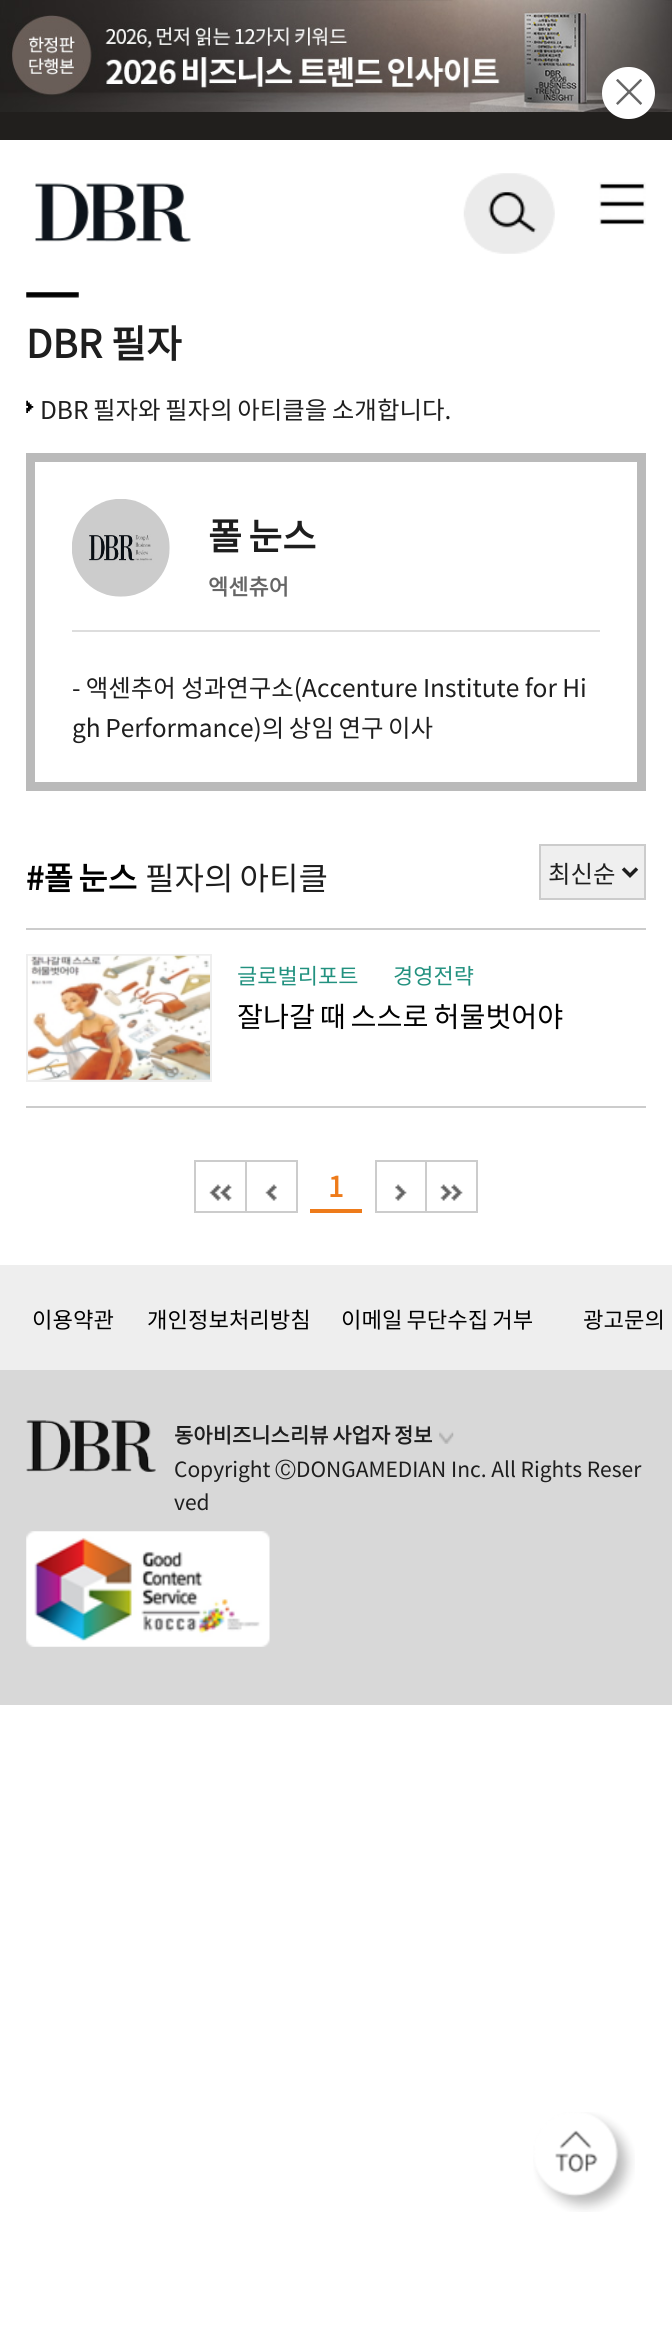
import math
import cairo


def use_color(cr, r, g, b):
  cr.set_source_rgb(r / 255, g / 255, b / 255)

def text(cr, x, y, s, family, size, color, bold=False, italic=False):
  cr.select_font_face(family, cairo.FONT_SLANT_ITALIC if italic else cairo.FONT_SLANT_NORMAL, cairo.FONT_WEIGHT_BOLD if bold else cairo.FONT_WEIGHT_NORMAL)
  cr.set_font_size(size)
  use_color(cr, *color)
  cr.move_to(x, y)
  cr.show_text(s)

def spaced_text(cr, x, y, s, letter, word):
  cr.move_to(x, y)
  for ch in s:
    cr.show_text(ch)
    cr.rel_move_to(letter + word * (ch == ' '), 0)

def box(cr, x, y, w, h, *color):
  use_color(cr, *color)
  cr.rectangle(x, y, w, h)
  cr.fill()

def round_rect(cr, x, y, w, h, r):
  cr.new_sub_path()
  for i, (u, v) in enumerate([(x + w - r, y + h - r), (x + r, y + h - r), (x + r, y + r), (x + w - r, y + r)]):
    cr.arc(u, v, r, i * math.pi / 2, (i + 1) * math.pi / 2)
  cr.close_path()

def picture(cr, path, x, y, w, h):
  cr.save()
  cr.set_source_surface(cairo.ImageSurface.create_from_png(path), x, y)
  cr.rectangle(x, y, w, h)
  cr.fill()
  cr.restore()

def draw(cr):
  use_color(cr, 255, 255, 255)
  cr.paint()
  box(cr, 0, 112, 672, 28, 33, 31, 29)
  picture(cr, "img_01.png", 0, 0, 672, 112)
  use_color(cr, 255, 255, 255)
  round_rect(cr, 602, 67, 53, 52, 26)
  cr.fill()
  picture(cr, "img_02.png", 616, 79, 26, 26)
  picture(cr, "img_03.png", 35, 183, 156, 59)
  picture(cr, "img_04.png", 463, 173, 92, 81)
  picture(cr, "img_05.png", 599, 182, 47, 43)
  picture(cr, "img_06.png", 26, 292, 53, 6)
  picture(cr, "img_07.png", 26, 400, 8, 13)
  cr.rectangle(30.5, 457.5, 611, 329)
  use_color(cr, 186, 186, 186)
  cr.set_line_width(9)
  cr.stroke()
  picture(cr, "img_08.png", 72, 499, 98, 98)
  box(cr, 72, 630, 528, 2, 221, 221, 221)
  use_color(cr, 239, 239, 239)
  cr.rectangle(540, 845, 105, 54)
  cr.fill_preserve()
  use_color(cr, 204, 204, 204)
  cr.set_line_width(2)
  cr.stroke()
  cr.new_path()
  cr.move_to(623, 868.5)
  cr.line_to(630, 875.5)
  cr.line_to(637, 868.5)
  use_color(cr, 30, 30, 30)
  cr.set_line_width(3.5)
  cr.stroke()
  box(cr, 26, 928, 620, 2, 204, 204, 204)
  box(cr, 26, 1106, 620, 2, 204, 204, 204)
  cr.rectangle(27, 955, 184, 126)
  use_color(cr, 238, 238, 238)
  cr.set_line_width(2)
  cr.stroke()
  picture(cr, "img_09.png", 28, 955, 182, 125)
  box(cr, 194, 1160, 51, 2, 204, 204, 204)
  box(cr, 194, 1211, 51, 2, 204, 204, 204)
  box(cr, 194, 1160, 2, 53, 204, 204, 204)
  picture(cr, "img_10.png", 209, 1184, 23, 17)
  cr.rectangle(246, 1161, 51, 51)
  cr.stroke()
  picture(cr, "img_11.png", 265, 1184, 12, 17)
  box(cr, 310, 1209, 52, 4, 238, 123, 26)
  box(cr, 375, 1160, 50, 2, 204, 204, 204)
  box(cr, 375, 1211, 50, 2, 204, 204, 204)
  box(cr, 375, 1160, 2, 53, 204, 204, 204)
  picture(cr, "img_12.png", 395, 1184, 12, 17)
  cr.rectangle(426, 1161, 51, 51)
  cr.stroke()
  picture(cr, "img_13.png", 440, 1184, 23, 17)
  picture(cr, "img_14.png", 533, 2112, 102, 100)
  box(cr, 0, 1265, 672, 105, 238, 238, 238)
  box(cr, 0, 1370, 672, 335, 216, 216, 216)
  picture(cr, "img_15.png", 26, 1420, 130, 52)
  picture(cr, "img_16.png", 439, 1431, 15, 13)
  picture(cr, "img_17.png", 26, 1531, 244, 116)
  text(cr, 26, 358, "DBR 필자", "Noto Sans KR", 38.5, (30, 30, 30), bold=True)
  cr.select_font_face("Noto Sans KR")
  cr.set_font_size(24.5)
  spaced_text(cr, 40, 419, "DBR 필자와 필자의 아티클을 소개합니다.", 0, -1)
  cr.select_font_face("Noto Sans KR", cairo.FONT_SLANT_NORMAL, cairo.FONT_WEIGHT_BOLD)
  cr.set_font_size(37)
  spaced_text(cr, 208, 550, "폴 눈스", 0, -2)
  text(cr, 208, 595, "엑센츄어", "Noto Sans KR", 22, (102, 102, 102), bold=True)
  cr.select_font_face("Noto Sans KR")
  cr.set_font_size(24.5)
  use_color(cr, 30, 30, 30)
  spaced_text(cr, 72, 697, "- 액센추어 성과연구소(Accenture Institute for Hi", 0, -0.25)
  spaced_text(cr, 72, 737, "gh Performance)의 상임 연구 이사", 0, -1)
  cr.select_font_face("Noto Sans KR", cairo.FONT_SLANT_NORMAL, cairo.FONT_WEIGHT_BOLD)
  cr.set_font_size(32)
  use_color(cr, 0, 0, 0)
  spaced_text(cr, 26, 890, "#폴 눈스", 0, -2)
  cr.select_font_face("Noto Sans KR")
  use_color(cr, 30, 30, 30)
  spaced_text(cr, 145, 890, "필자의 아티클", 0, -1)
  text(cr, 548, 883, "최신순", "Noto Sans KR", 24.5, (30, 30, 30))
  text(cr, 237, 984, "글로벌리포트", "Noto Sans KR", 22, (34, 145, 127))
  text(cr, 393, 984, "경영전략", "Noto Sans KR", 22, (34, 145, 127))
  cr.set_font_size(28.25)
  use_color(cr, 0, 0, 0)
  spaced_text(cr, 237, 1027, "잘나갈 때 스스로 허물벗어야", 0, -1.5)
  text(cr, 328, 1197, "1", "Noto Sans KR", 28, (238, 123, 26), bold=True)
  text(cr, 32, 1328, "이용약관", "Noto Sans KR", 22.25, (0, 0, 0))
  text(cr, 147, 1328, "개인정보처리방침", "Noto Sans KR", 22.25, (0, 0, 0))
  spaced_text(cr, 341, 1328, "이메일 무단수집 거부", 0, -1)
  text(cr, 583, 1328, "광고문의", "Noto Sans KR", 22.25, (0, 0, 0))
  cr.select_font_face("Noto Sans KR", cairo.FONT_SLANT_NORMAL, cairo.FONT_WEIGHT_BOLD)
  cr.set_font_size(21)
  use_color(cr, 30, 30, 30)
  spaced_text(cr, 174, 1443, "동아비즈니스리뷰 사업자 정보", 0, -1)
  text(cr, 174, 1477, "Copyright", "Noto Sans KR", 21, (30, 30, 30))
  text(cr, 275, 1477, "Ⓒ", "WenQuanYi Zen Hei Medium", 21, (30, 30, 30))
  text(cr, 296, 1477, "DONGAMEDIAN Inc. All Rights Reser", "Noto Sans KR", 21, (30, 30, 30))
  text(cr, 174, 1510, "ved", "Noto Sans KR", 21, (30, 30, 30))


surface = cairo.ImageSurface(cairo.FORMAT_RGB24, 672, 2334)
cr = cairo.Context(surface)
options = cairo.FontOptions()
options.set_hint_metrics(cairo.HINT_METRICS_OFF)
options.set_hint_style(cairo.HINT_STYLE_NONE)
cr.set_font_options(options)
cr.set_miter_limit(4)
draw(cr)
surface.write_to_png("out.png")
